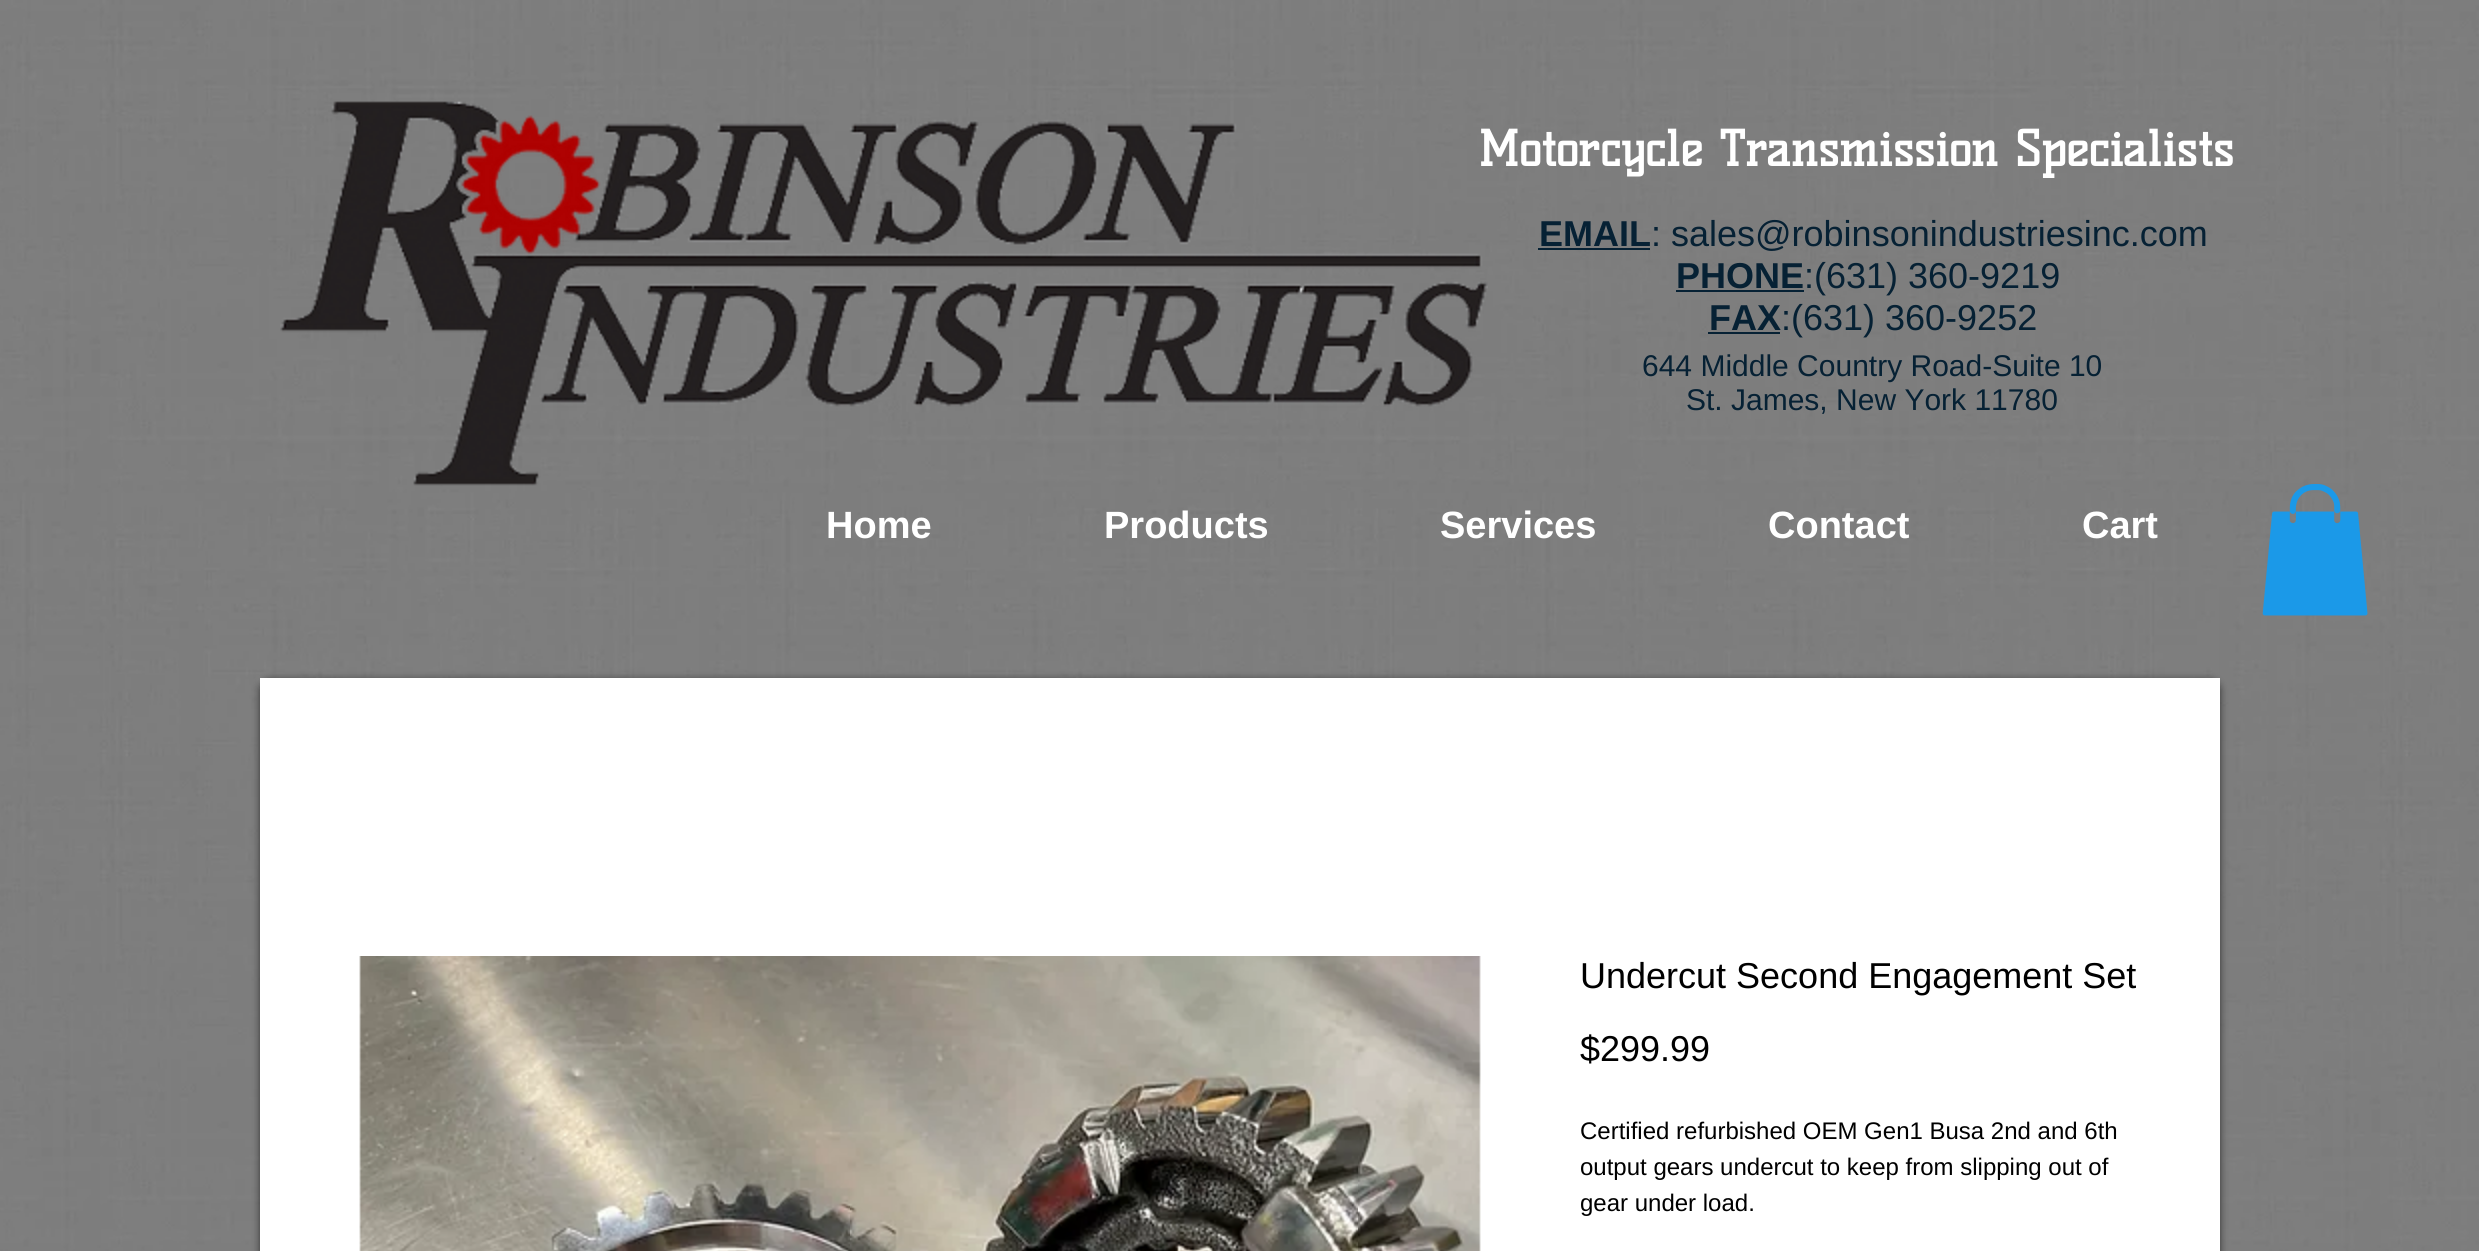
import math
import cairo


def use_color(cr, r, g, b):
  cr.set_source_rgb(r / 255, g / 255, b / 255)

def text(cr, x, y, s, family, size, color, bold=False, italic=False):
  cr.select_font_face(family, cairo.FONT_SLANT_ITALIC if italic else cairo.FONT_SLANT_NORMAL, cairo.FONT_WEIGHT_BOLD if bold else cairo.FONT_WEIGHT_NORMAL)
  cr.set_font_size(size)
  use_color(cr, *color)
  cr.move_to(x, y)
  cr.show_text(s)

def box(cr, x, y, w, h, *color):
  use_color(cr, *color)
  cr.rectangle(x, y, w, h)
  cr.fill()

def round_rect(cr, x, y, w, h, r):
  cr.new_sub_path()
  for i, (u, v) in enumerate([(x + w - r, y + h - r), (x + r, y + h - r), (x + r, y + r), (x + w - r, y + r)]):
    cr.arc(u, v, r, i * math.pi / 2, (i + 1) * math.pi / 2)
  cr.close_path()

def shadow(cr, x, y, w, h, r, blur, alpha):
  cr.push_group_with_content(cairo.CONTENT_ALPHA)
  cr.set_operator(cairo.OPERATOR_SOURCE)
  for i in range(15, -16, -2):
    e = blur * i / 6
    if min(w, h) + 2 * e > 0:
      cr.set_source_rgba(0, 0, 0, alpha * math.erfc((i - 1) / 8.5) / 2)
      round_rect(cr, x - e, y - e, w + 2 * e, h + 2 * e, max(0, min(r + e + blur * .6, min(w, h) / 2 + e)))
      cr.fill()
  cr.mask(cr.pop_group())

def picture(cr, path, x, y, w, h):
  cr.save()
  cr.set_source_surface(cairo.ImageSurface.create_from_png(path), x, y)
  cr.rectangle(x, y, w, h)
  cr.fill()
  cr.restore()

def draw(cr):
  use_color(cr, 255, 255, 255)
  cr.paint()
  picture(cr, "img_01.png", 0, 0, 2479, 1251)
  picture(cr, "img_02.png", 280, 101, 1208, 385)
  box(cr, 1538, 248, 112, 2, 6, 33, 52)
  box(cr, 1676, 290, 128, 2, 6, 33, 52)
  box(cr, 1708, 332, 72, 2, 6, 33, 52)
  picture(cr, "img_03.png", 2262, 484, 106, 132)
  use_color(cr, 0, 0, 0)
  shadow(cr, 260, 680, 1960, 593, 10, 4, 0.6)
  box(cr, 260, 678, 1960, 573, 255, 255, 255)
  picture(cr, "img_04.png", 359, 956, 1122, 295)
  text(cr, 1478, 166, "Motorcycle Transmission Specialists", "Kelly Slab", 48, (255, 255, 255), bold=True)
  text(cr, 1539, 246, "EMAIL", "Liberation Sans", 36, (6, 33, 52), bold=True)
  text(cr, 1651, 246, ": sales@robinsonindustriesinc.com", "Liberation Sans", 36, (6, 33, 52))
  text(cr, 1676, 288, "PHONE", "Liberation Sans", 36, (6, 33, 52), bold=True)
  text(cr, 1804, 288, ":(631) 360-9219", "Liberation Sans", 36, (6, 33, 52))
  text(cr, 1709, 330, "FAX", "Liberation Sans", 36, (6, 33, 52), bold=True)
  text(cr, 1781, 330, ":(631) 360-9252", "Liberation Sans", 36, (6, 33, 52))
  text(cr, 1642, 376, "644 Middle Country Road-Suite 10", "Liberation Sans", 30, (6, 33, 52))
  text(cr, 1686, 410, "St. James, New York 11780", "Liberation Sans", 30, (6, 33, 52))
  text(cr, 826, 538, "Home", "Liberation Sans", 38, (255, 255, 255), bold=True)
  text(cr, 1104, 538, "Products", "Liberation Sans", 38, (255, 255, 255), bold=True)
  text(cr, 1440, 538, "Services", "Liberation Sans", 38, (255, 255, 255), bold=True)
  text(cr, 1768, 538, "Contact", "Liberation Sans", 38, (255, 255, 255), bold=True)
  text(cr, 2082, 538, "Cart", "Liberation Sans", 38, (255, 255, 255), bold=True)
  text(cr, 1580, 988, "Undercut Second Engagement Set", "Liberation Sans", 36, (0, 0, 0))
  text(cr, 1580, 1061, "$299.99", "Liberation Sans", 36, (0, 0, 0))
  text(cr, 1580, 1139, "Certified refurbished OEM Gen1 Busa 2nd and 6th", "Liberation Sans", 24, (0, 0, 0))
  text(cr, 1580, 1175, "output gears undercut to keep from slipping out of", "Liberation Sans", 24, (0, 0, 0))
  text(cr, 1580, 1211, "gear under load.", "Liberation Sans", 24, (0, 0, 0))


surface = cairo.ImageSurface(cairo.FORMAT_RGB24, 2479, 1251)
cr = cairo.Context(surface)
options = cairo.FontOptions()
options.set_hint_metrics(cairo.HINT_METRICS_OFF)
options.set_hint_style(cairo.HINT_STYLE_NONE)
cr.set_font_options(options)
cr.set_miter_limit(4)
draw(cr)
surface.write_to_png("out.png")
